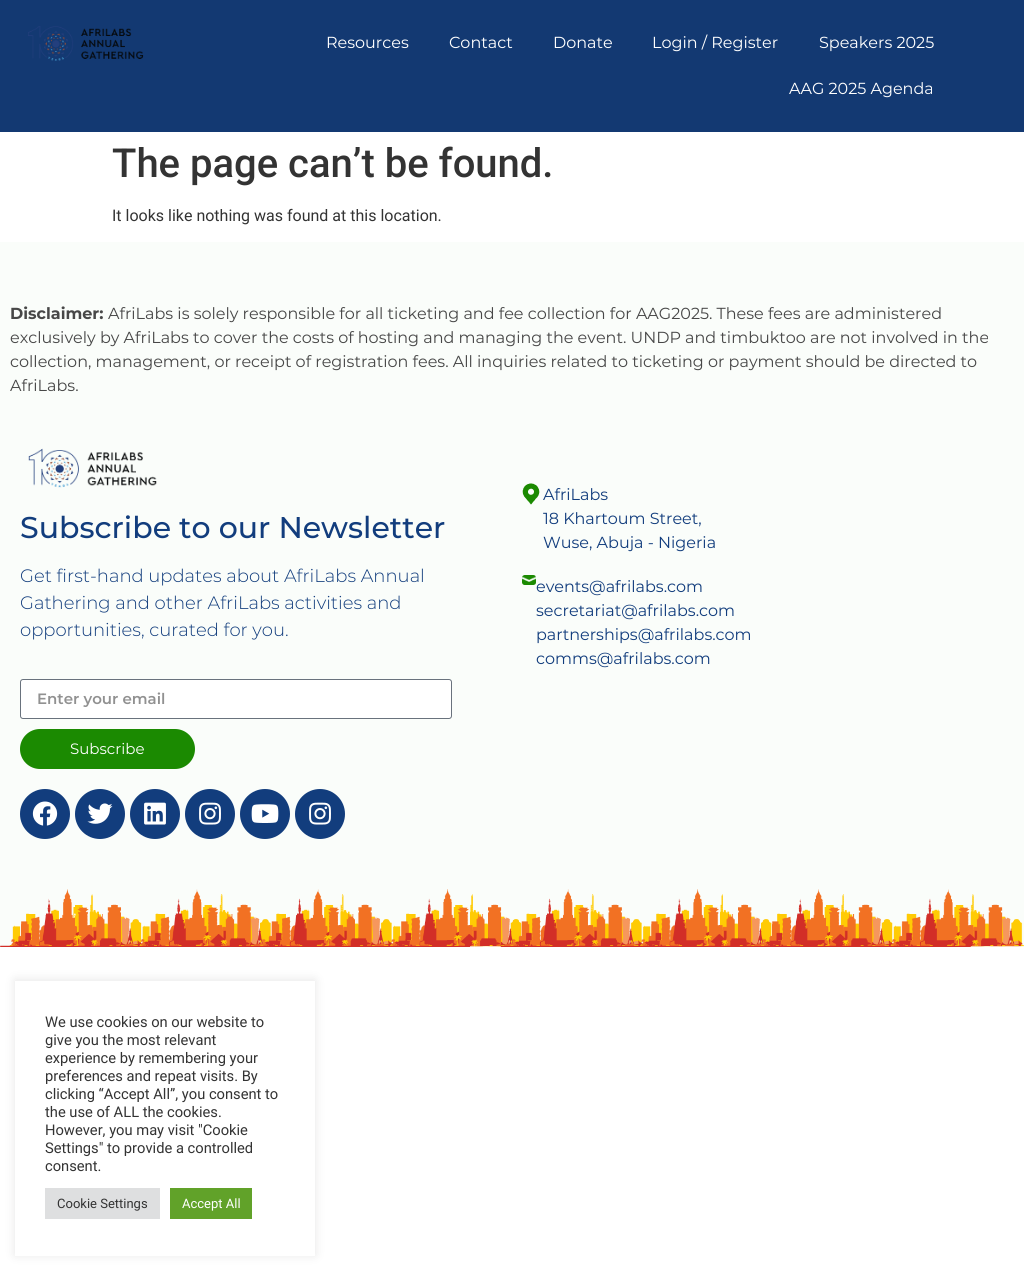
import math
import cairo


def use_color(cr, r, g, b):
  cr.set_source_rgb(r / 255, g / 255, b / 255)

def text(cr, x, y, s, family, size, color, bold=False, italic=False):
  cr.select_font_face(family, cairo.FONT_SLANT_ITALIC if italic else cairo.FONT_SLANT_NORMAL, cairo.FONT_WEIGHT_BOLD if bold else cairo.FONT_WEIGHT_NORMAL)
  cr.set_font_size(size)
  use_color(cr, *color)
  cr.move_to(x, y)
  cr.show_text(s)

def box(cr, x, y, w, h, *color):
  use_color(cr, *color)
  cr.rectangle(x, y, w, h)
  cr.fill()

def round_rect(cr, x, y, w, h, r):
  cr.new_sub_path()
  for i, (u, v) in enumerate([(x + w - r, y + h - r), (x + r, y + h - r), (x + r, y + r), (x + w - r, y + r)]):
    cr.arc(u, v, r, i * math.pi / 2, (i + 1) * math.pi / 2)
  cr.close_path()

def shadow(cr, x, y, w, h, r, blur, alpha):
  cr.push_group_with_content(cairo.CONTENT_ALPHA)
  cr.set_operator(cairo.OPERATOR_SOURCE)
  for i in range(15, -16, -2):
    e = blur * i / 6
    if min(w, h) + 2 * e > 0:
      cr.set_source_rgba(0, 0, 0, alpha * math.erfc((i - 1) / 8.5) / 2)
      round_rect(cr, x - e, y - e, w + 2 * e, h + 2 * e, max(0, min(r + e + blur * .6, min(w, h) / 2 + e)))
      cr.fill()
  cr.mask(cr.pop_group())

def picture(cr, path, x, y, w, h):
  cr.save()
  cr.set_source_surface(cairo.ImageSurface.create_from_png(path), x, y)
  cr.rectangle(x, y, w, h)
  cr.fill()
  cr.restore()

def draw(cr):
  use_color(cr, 255, 255, 255)
  cr.paint()
  box(cr, 0, 0, 1024, 132, 19, 57, 114)
  picture(cr, "img_01.png", 28, 26, 116, 35)
  box(cr, 0, 242, 1024, 705, 250, 253, 250)
  picture(cr, "img_02.png", 0, 889, 1024, 58)
  picture(cr, "img_03.png", 28, 448, 129, 40)
  use_color(cr, 255, 255, 255)
  round_rect(cr, 20.5, 679.5, 431, 39, 2.5)
  cr.fill_preserve()
  use_color(cr, 105, 114, 125)
  cr.set_line_width(1)
  cr.stroke()
  use_color(cr, 27, 138, 1)
  round_rect(cr, 20, 729, 175, 40, 20)
  cr.fill()
  use_color(cr, 18, 61, 125)
  cr.arc(45, 814, 25, 0, 2 * math.pi)
  cr.fill()
  picture(cr, "img_04.png", 32, 801, 26, 25)
  cr.arc(100, 814, 25, 0, 2 * math.pi)
  cr.fill()
  picture(cr, "img_05.png", 87, 803, 26, 21)
  cr.arc(155, 814, 25, 0, 2 * math.pi)
  cr.fill()
  picture(cr, "img_06.png", 144, 802, 22, 23)
  cr.arc(210, 814, 25, 0, 2 * math.pi)
  cr.fill()
  picture(cr, "img_07.png", 199, 802, 22, 23)
  cr.arc(265, 814, 25, 0, 2 * math.pi)
  cr.fill()
  picture(cr, "img_08.png", 251, 804, 28, 19)
  cr.arc(320, 814, 25, 0, 2 * math.pi)
  cr.fill()
  picture(cr, "img_07.png", 309, 802, 22, 23)
  picture(cr, "img_09.png", 522, 483, 18, 22)
  picture(cr, "img_10.png", 522, 575, 14, 10)
  cr.save()
  cr.set_fill_rule(cairo.FILL_RULE_EVEN_ODD)
  cr.new_path()
  cr.move_to(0, 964)
  cr.line_to(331, 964)
  cr.line_to(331, 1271)
  cr.line_to(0, 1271)
  cr.close_path()
  cr.move_to(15, 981)
  cr.line_to(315, 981)
  cr.line_to(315, 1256)
  cr.line_to(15, 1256)
  cr.close_path()
  cr.clip()
  use_color(cr, 172, 171, 171)
  shadow(cr, 15, 980, 300, 275, 0, 5, 0.3)
  cr.restore()
  box(cr, 45, 1188, 115, 31, 222, 223, 224)
  box(cr, 170, 1188, 82, 31, 97, 162, 41)
  text(cr, 326, 48, "Resources", "Montserrat", 16, (255, 255, 255))
  text(cr, 449, 48, "Contact", "Montserrat", 16, (255, 255, 255))
  text(cr, 553, 48, "Donate", "Montserrat", 16, (255, 255, 255))
  text(cr, 652, 48, "Login / Register", "Montserrat", 16, (255, 255, 255))
  text(cr, 819, 48, "Speakers 2025", "Montserrat", 16, (255, 255, 255))
  text(cr, 789, 94, "AAG 2025 Agenda", "Montserrat", 16, (255, 255, 255))
  text(cr, 112, 177, "The page can’t be found.", "Roboto Medium", 40, (51, 51, 51))
  text(cr, 112, 221, "It looks like nothing was found at this location.", "Roboto", 16, (51, 51, 51))
  text(cr, 10, 319, "Disclaimer:", "Montserrat", 16, (71, 71, 71), bold=True)
  text(cr, 108, 319, "AfriLabs is solely responsible for all ticketing and fee collection for AAG2025. These fees are administered", "Montserrat", 16, (71, 71, 71))
  text(cr, 10, 343, "exclusively by AfriLabs to cover the costs of hosting and managing the event. UNDP and timbuktoo are not involved in the", "Montserrat", 16, (71, 71, 71))
  text(cr, 10, 367, "collection, management, or receipt of registration fees. All inquiries related to ticketing or payment should be directed to", "Montserrat", 16, (71, 71, 71))
  text(cr, 10, 391, "AfriLabs.", "Montserrat", 16, (71, 71, 71))
  text(cr, 20, 538, "Subscribe to our Newsletter", "Montserrat Medium", 30, (18, 61, 125))
  text(cr, 20, 582, "Get first-hand updates about AfriLabs Annual", "Montserrat Light", 18, (18, 61, 125))
  text(cr, 20, 609, "Gathering and other AfriLabs activities and", "Montserrat Light", 18, (18, 61, 125))
  text(cr, 20, 636, "opportunities, curated for you.", "Montserrat Light", 18, (18, 61, 125))
  text(cr, 37, 704, "Enter your email", "Montserrat SemiBold", 15, (145, 145, 145))
  text(cr, 70, 754, "Subscribe", "Montserrat", 15, (255, 255, 255))
  text(cr, 543, 500, "AfriLabs", "Montserrat", 16, (18, 61, 125))
  text(cr, 543, 524, "18 Khartoum Street,", "Montserrat", 16, (18, 61, 125))
  text(cr, 543, 548, "Wuse, Abuja - Nigeria", "Montserrat", 16, (18, 61, 125))
  text(cr, 536, 592, "events@afrilabs.com", "Montserrat", 16, (18, 61, 125))
  text(cr, 536, 616, "secretariat@afrilabs.com", "Montserrat", 16, (18, 61, 125))
  text(cr, 536, 640, "partnerships@afrilabs.com", "Montserrat", 16, (18, 61, 125))
  text(cr, 536, 664, "comms@afrilabs.com", "Montserrat", 16, (18, 61, 125))
  text(cr, 73, 915, ",", "Montserrat Light", 18, (255, 255, 255))
  text(cr, 45, 1027, "We use cookies on our website to", "Roboto", 14.7, (51, 51, 51))
  text(cr, 45, 1045, "give you the most relevant", "Roboto", 14.7, (51, 51, 51))
  text(cr, 45, 1063, "experience by remembering your", "Roboto", 14.7, (51, 51, 51))
  text(cr, 45, 1081, "preferences and repeat visits. By", "Roboto", 14.7, (51, 51, 51))
  text(cr, 45, 1099, "clicking “Accept All”, you consent to", "Roboto", 14.7, (51, 51, 51))
  text(cr, 45, 1117, "the use of ALL the cookies.", "Roboto", 14.7, (51, 51, 51))
  text(cr, 45, 1135, "However, you may visit \"Cookie", "Roboto", 14.7, (51, 51, 51))
  text(cr, 45, 1153, "Settings\" to provide a controlled", "Roboto", 14.7, (51, 51, 51))
  text(cr, 45, 1171, "consent.", "Roboto", 14.7, (51, 51, 51))
  text(cr, 57, 1208, "Cookie Settings", "Roboto", 13, (51, 51, 51))
  text(cr, 182, 1208, "Accept All", "Roboto", 13, (255, 255, 255))


surface = cairo.ImageSurface(cairo.FORMAT_RGB24, 1024, 1271)
cr = cairo.Context(surface)
options = cairo.FontOptions()
options.set_hint_metrics(cairo.HINT_METRICS_OFF)
options.set_hint_style(cairo.HINT_STYLE_NONE)
cr.set_font_options(options)
cr.set_miter_limit(4)
draw(cr)
surface.write_to_png("out.png")
